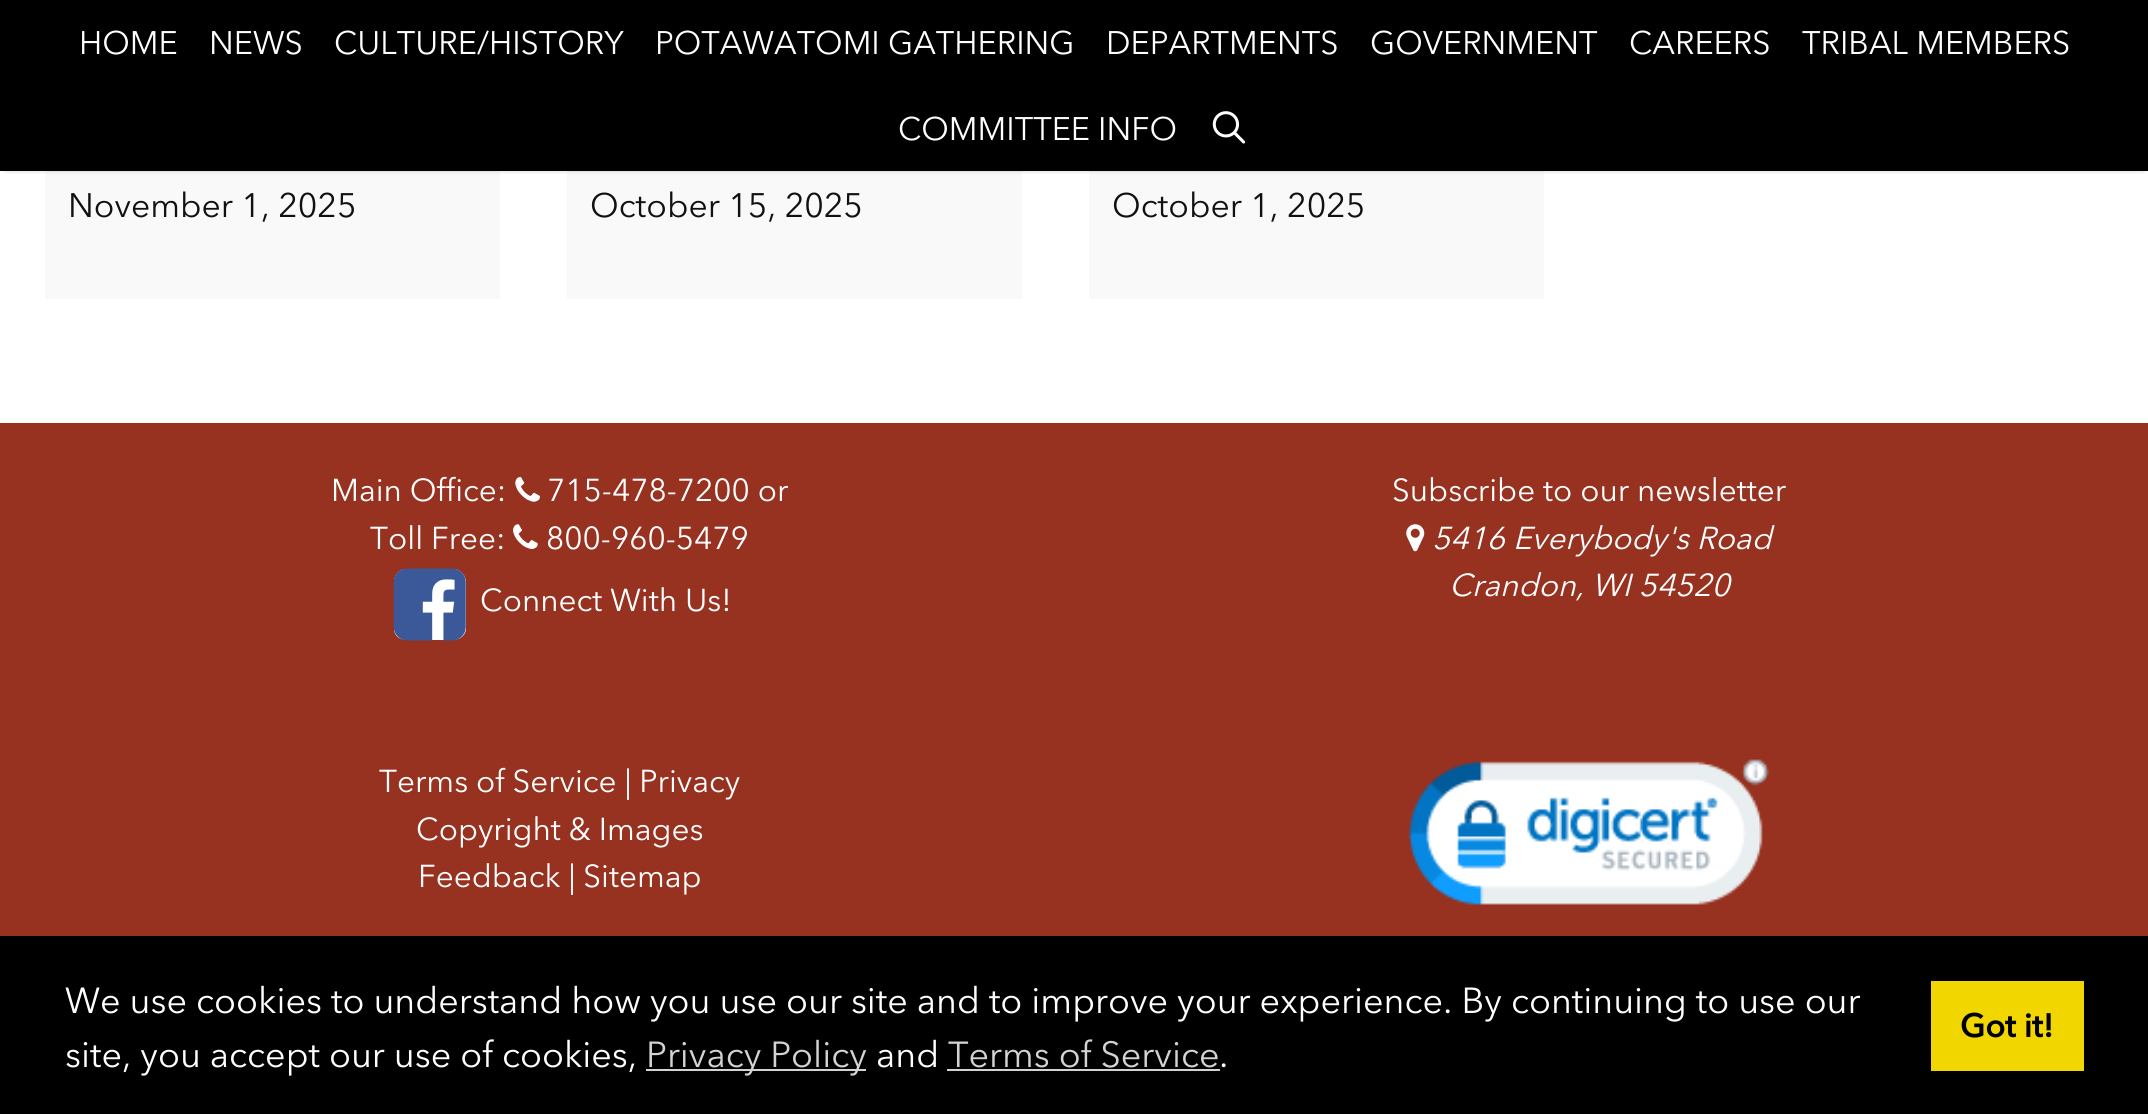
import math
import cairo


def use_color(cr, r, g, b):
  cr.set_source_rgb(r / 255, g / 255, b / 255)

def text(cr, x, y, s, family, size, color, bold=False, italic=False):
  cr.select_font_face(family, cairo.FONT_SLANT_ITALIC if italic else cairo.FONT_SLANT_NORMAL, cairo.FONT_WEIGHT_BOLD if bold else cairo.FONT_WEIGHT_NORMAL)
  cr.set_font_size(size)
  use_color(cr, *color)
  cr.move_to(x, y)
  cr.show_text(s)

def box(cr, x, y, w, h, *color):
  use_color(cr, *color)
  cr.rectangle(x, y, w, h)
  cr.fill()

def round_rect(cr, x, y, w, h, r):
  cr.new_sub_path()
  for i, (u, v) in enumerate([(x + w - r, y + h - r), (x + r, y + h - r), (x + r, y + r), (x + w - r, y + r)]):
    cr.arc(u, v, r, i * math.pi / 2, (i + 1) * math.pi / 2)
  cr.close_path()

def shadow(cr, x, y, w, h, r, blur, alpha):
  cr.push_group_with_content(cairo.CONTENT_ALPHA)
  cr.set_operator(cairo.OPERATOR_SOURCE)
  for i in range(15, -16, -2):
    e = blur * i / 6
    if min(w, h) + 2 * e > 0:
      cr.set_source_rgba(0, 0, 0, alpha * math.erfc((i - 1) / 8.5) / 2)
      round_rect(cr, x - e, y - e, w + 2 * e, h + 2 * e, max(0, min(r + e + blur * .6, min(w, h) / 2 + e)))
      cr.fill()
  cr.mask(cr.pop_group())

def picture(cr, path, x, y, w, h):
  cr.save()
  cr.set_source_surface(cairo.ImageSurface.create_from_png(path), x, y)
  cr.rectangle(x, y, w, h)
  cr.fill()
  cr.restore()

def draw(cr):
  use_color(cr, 255, 255, 255)
  cr.paint()
  box(cr, 45, 171, 455, 128, 249, 249, 249)
  box(cr, 567, 171, 455, 128, 249, 249, 249)
  box(cr, 1089, 171, 455, 128, 249, 249, 249)
  use_color(cr, 0, 0, 0)
  shadow(cr, 5, 9, 2139, 162, 0, 2, 0.2)
  box(cr, 0, 0, 2148, 171, 0, 0, 0)
  picture(cr, "img_01.png", 1212, 111, 34, 33)
  box(cr, 0, 423, 2148, 513, 151, 49, 32)
  picture(cr, "img_02.png", 515, 477, 25, 25)
  picture(cr, "img_03.png", 513, 524, 25, 25)
  use_color(cr, 255, 255, 255)
  cr.new_path()
  cr.move_to(466, 582)
  cr.line_to(466, 630)
  cr.curve_to(463, 641, 454, 640, 445, 640)
  cr.line_to(415, 640)
  cr.curve_to(406, 640, 396, 641, 394, 630)
  cr.line_to(394, 582)
  cr.curve_to(394, 576, 398, 570, 405, 569)
  cr.line_to(455, 569)
  cr.curve_to(461, 570, 466, 576, 466, 582)
  cr.close_path()
  cr.fill()
  picture(cr, "img_04.png", 393, 568, 73, 73)
  picture(cr, "img_05.png", 1406, 524, 19, 28)
  picture(cr, "img_06.png", 1408, 759, 361, 146)
  box(cr, 0, 936, 2148, 178, 0, 0, 0)
  box(cr, 646, 1069, 220, 2, 211, 211, 211)
  box(cr, 947, 1069, 273, 2, 211, 211, 211)
  box(cr, 1931, 981, 153, 90, 241, 214, 0)
  text(cr, 79, 54, "HOME", "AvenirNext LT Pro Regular", 32.4, (255, 255, 255))
  text(cr, 209, 54, "NEWS", "AvenirNext LT Pro Regular", 32.4, (255, 255, 255))
  text(cr, 334, 54, "CULTURE/HISTORY", "AvenirNext LT Pro Regular", 32.4, (255, 255, 255))
  text(cr, 655, 54, "POTAWATOMI GATHERING", "AvenirNext LT Pro Regular", 32.4, (255, 255, 255))
  text(cr, 1106, 54, "DEPARTMENTS", "AvenirNext LT Pro Regular", 32.4, (255, 255, 255))
  text(cr, 1370, 54, "GOVERNMENT", "AvenirNext LT Pro Regular", 32.4, (255, 255, 255))
  text(cr, 1629, 54, "CAREERS", "AvenirNext LT Pro Regular", 32.4, (255, 255, 255))
  text(cr, 1802, 54, "TRIBAL MEMBERS", "AvenirNext LT Pro Regular", 32.4, (255, 255, 255))
  text(cr, 898, 140, "COMMITTEE INFO", "AvenirNext LT Pro Regular", 32.4, (255, 255, 255))
  text(cr, 68, 217, "November 1, 2025", "AvenirNext LT Pro Regular", 33.75, (17, 17, 17))
  text(cr, 590, 217, "October 15, 2025", "AvenirNext LT Pro Regular", 33.75, (17, 17, 17))
  text(cr, 1112, 217, "October 1, 2025", "AvenirNext LT Pro Regular", 33.75, (17, 17, 17))
  text(cr, 331, 501, "Main Office:", "AvenirNext LT Pro Regular", 31.5, (255, 255, 255))
  text(cr, 547, 501, "715-478-7200 or", "AvenirNext LT Pro Regular", 31.5, (255, 255, 255))
  text(cr, 370, 549, "Toll Free:", "AvenirNext LT Pro Regular", 31.5, (255, 255, 255))
  text(cr, 546, 549, "800-960-5479", "AvenirNext LT Pro Regular", 31.5, (255, 255, 255))
  text(cr, 480, 611, "Connect With Us!", "AvenirNext LT Pro Regular", 31.5, (255, 255, 255))
  text(cr, 1392, 501, "Subscribe to our newsletter", "AvenirNext LT Pro Regular", 31.5, (255, 255, 255))
  text(cr, 1432, 549, "5416 Everybody's Road", "AvenirNext LT Pro Regular", 31.5, (255, 255, 255), italic=True)
  text(cr, 1449, 596, "Crandon, WI 54520", "AvenirNext LT Pro Regular", 31.5, (255, 255, 255), italic=True)
  text(cr, 379, 792, "Terms of Service | Privacy", "AvenirNext LT Pro Regular", 31.5, (255, 255, 255))
  text(cr, 416, 840, "Copyright & Images", "AvenirNext LT Pro Regular", 31.5, (255, 255, 255))
  text(cr, 418, 887, "Feedback | Sitemap", "AvenirNext LT Pro Regular", 31.5, (255, 255, 255))
  text(cr, 65, 1013, "We use cookies to understand how you use our site and to improve your experience. By continuing to use our", "AvenirNext LT Pro Regular", 36, (255, 255, 255))
  text(cr, 65, 1067, "site, you accept our use of cookies,", "AvenirNext LT Pro Regular", 36, (255, 255, 255))
  text(cr, 646, 1067, "Privacy Policy", "AvenirNext LT Pro Regular", 36, (211, 211, 211))
  text(cr, 876, 1067, "and", "AvenirNext LT Pro Regular", 36, (255, 255, 255))
  text(cr, 948, 1067, "Terms of Service", "AvenirNext LT Pro Regular", 36, (211, 211, 211))
  text(cr, 1219, 1067, ".", "AvenirNext LT Pro Regular", 36, (255, 255, 255))
  text(cr, 1960, 1037, "Got it!", "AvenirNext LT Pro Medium", 32.4, (0, 0, 0), bold=True)


surface = cairo.ImageSurface(cairo.FORMAT_RGB24, 2148, 1114)
cr = cairo.Context(surface)
options = cairo.FontOptions()
options.set_hint_metrics(cairo.HINT_METRICS_OFF)
options.set_hint_style(cairo.HINT_STYLE_NONE)
cr.set_font_options(options)
cr.set_miter_limit(4)
draw(cr)
surface.write_to_png("out.png")
